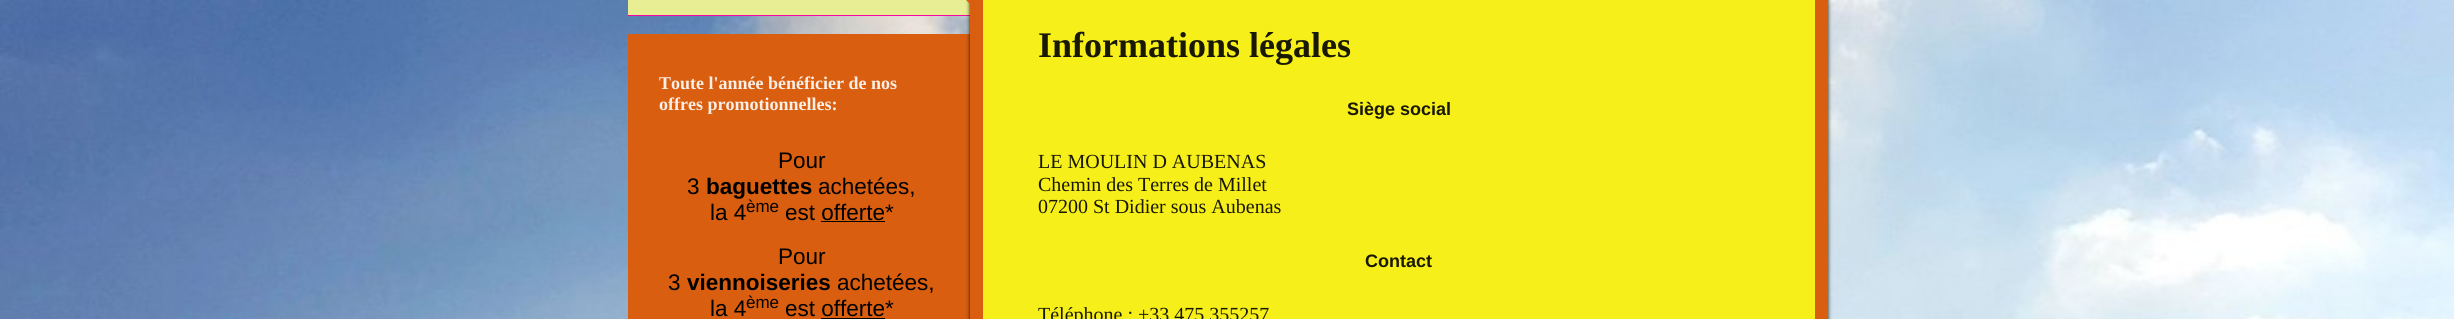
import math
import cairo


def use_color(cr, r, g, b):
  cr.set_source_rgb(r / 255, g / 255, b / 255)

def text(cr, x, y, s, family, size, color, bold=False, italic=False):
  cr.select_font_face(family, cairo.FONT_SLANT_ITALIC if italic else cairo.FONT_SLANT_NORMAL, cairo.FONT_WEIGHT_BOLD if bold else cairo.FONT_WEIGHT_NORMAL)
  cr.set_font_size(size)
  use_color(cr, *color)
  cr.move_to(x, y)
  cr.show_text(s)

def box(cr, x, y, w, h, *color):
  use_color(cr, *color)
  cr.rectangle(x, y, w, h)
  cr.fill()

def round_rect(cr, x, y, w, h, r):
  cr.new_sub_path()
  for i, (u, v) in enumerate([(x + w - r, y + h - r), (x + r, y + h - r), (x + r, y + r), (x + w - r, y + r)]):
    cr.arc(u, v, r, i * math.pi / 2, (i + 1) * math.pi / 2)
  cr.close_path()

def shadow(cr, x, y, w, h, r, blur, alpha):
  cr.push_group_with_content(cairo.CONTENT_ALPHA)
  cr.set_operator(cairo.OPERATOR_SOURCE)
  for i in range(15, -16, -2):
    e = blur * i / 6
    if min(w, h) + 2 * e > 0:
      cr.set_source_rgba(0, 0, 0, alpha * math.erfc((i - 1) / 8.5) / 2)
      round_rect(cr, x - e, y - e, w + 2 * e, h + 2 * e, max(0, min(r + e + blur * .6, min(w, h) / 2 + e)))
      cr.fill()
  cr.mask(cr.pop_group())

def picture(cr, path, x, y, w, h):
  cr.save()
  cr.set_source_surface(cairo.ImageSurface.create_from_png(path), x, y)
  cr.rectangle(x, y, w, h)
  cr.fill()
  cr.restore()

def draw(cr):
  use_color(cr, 255, 255, 255)
  cr.paint()
  picture(cr, "img_01.png", 0, 0, 2454, 319)
  box(cr, 628, 0, 342, 15, 231, 238, 147)
  box(cr, 628, 15, 342, 1, 243, 6, 162)
  box(cr, 628, 34, 342, 285, 217, 94, 15)
  use_color(cr, 25, 24, 3)
  shadow(cr, 970, -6, 858, 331, 0, 2, 1)
  box(cr, 970, 0, 13, 319, 217, 94, 15)
  cr.new_path()
  cr.move_to(971, -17.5)
  cr.line_to(971, 5)
  cr.line_to(960, -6)
  cr.close_path()
  cr.fill()
  box(cr, 821, 221, 64, 1, 0, 0, 0)
  box(cr, 821, 318, 64, 1, 0, 0, 0)
  box(cr, 983, 0, 832, 319, 247, 239, 26)
  box(cr, 1815, 0, 13, 319, 217, 94, 15)
  text(cr, 659, 89, "Toute l'année bénéficier de nos", "Liberation Serif", 18, (251, 239, 231), bold=True)
  text(cr, 659, 110, "offres promotionnelles:", "Liberation Serif", 18, (251, 239, 231), bold=True)
  text(cr, 778, 168, "Pour", "Liberation Sans", 22.5, (0, 0, 0))
  text(cr, 687, 194, "3", "Liberation Sans", 22.5, (0, 0, 0))
  text(cr, 706, 194, "baguettes", "Liberation Sans", 22.5, (0, 0, 0), bold=True)
  text(cr, 818, 194, "achetées,", "Liberation Sans", 22.5, (0, 0, 0))
  text(cr, 710, 220, "la 4", "Liberation Sans", 22.5, (0, 0, 0))
  text(cr, 746, 212, "ème", "Liberation Sans", 17, (0, 0, 0))
  text(cr, 785, 220, "est offerte*", "Liberation Sans", 22.5, (0, 0, 0))
  text(cr, 778, 264, "Pour", "Liberation Sans", 22.5, (0, 0, 0))
  text(cr, 668, 290, "3", "Liberation Sans", 22.5, (0, 0, 0))
  text(cr, 687, 290, "viennoiseries", "Liberation Sans", 22.5, (0, 0, 0), bold=True)
  text(cr, 837, 290, "achetées,", "Liberation Sans", 22.5, (0, 0, 0))
  text(cr, 710, 316, "la 4", "Liberation Sans", 22.5, (0, 0, 0))
  text(cr, 746, 308, "ème", "Liberation Sans", 17, (0, 0, 0))
  text(cr, 785, 316, "est offerte*", "Liberation Sans", 22.5, (0, 0, 0))
  text(cr, 1038, 57, "Informations légales", "Liberation Serif", 36, (25, 24, 3), bold=True)
  text(cr, 1347, 115, "Siège social", "Liberation Sans", 18, (25, 24, 3), bold=True)
  text(cr, 1038, 168, "LE MOULIN D AUBENAS", "Liberation Serif", 20, (25, 24, 3))
  text(cr, 1038, 191, "Chemin des Terres de Millet", "Liberation Serif", 20, (25, 24, 3))
  text(cr, 1038, 213, "07200 St Didier sous Aubenas", "Liberation Serif", 20, (25, 24, 3))
  text(cr, 1365, 267, "Contact", "Liberation Sans", 18, (25, 24, 3), bold=True)
  text(cr, 1038, 321, "Téléphone : +33 475 355257", "Liberation Serif", 20, (25, 24, 3))


surface = cairo.ImageSurface(cairo.FORMAT_RGB24, 2454, 319)
cr = cairo.Context(surface)
options = cairo.FontOptions()
options.set_hint_metrics(cairo.HINT_METRICS_OFF)
options.set_hint_style(cairo.HINT_STYLE_NONE)
cr.set_font_options(options)
cr.set_miter_limit(4)
draw(cr)
surface.write_to_png("out.png")
